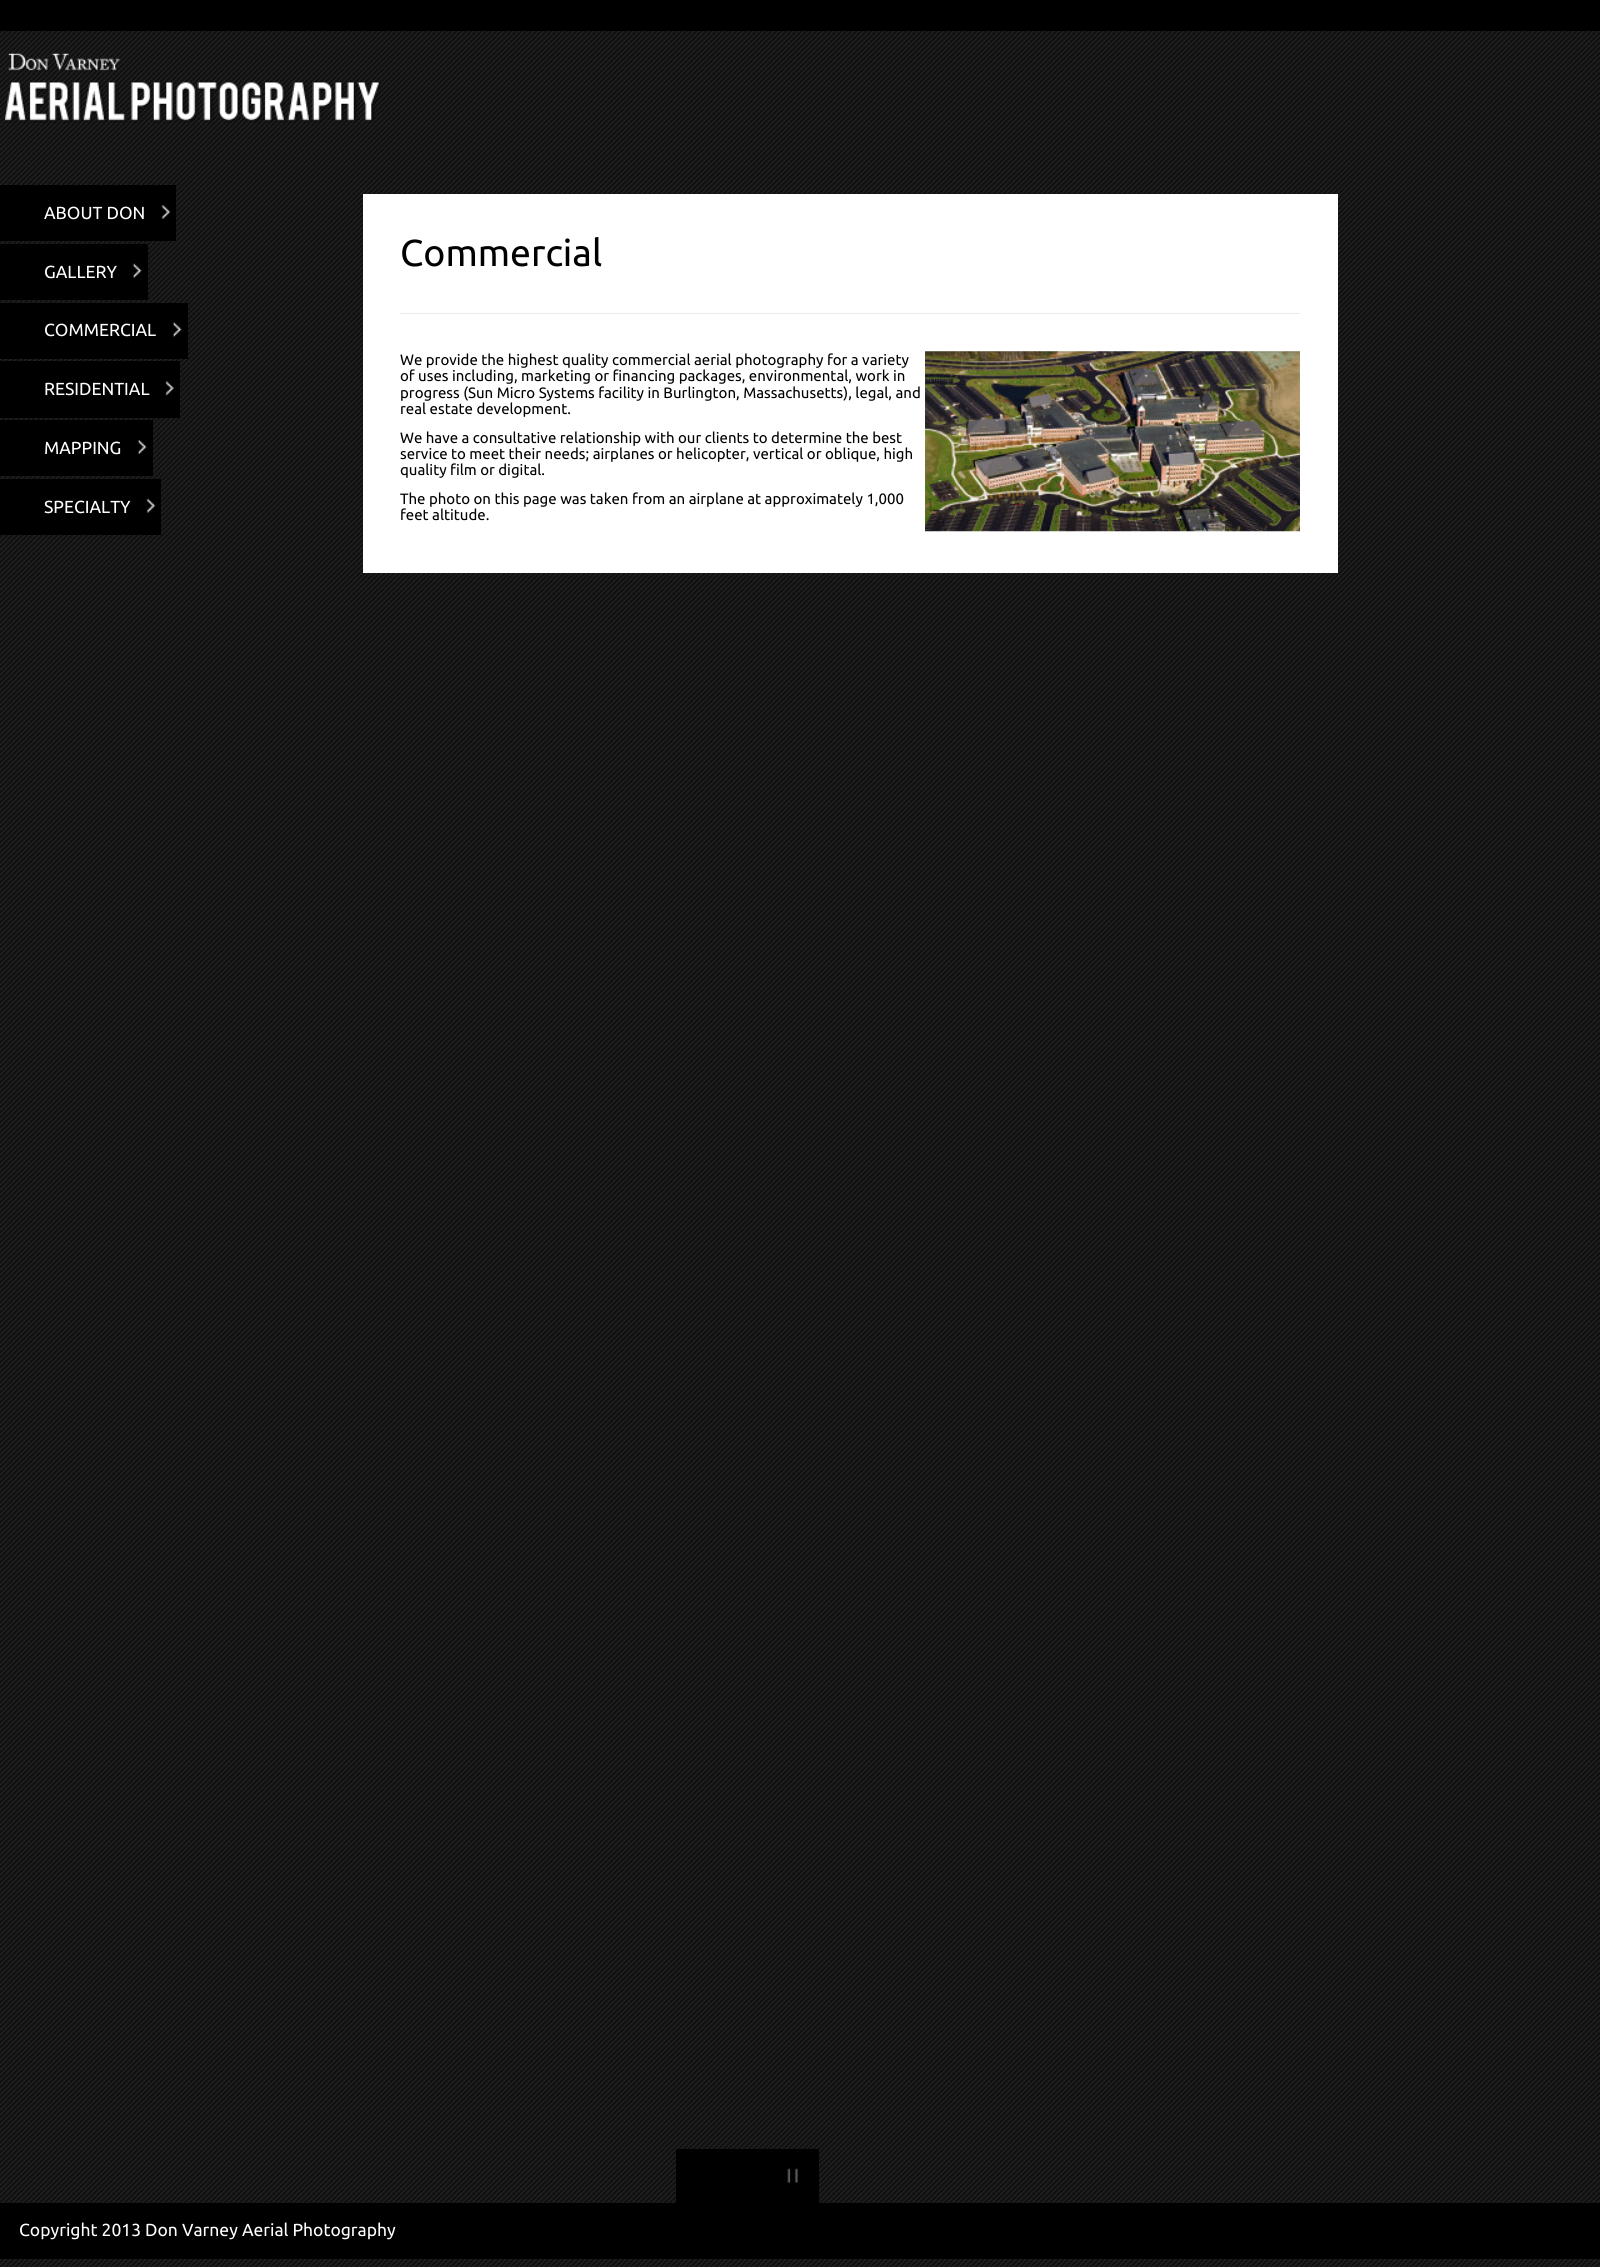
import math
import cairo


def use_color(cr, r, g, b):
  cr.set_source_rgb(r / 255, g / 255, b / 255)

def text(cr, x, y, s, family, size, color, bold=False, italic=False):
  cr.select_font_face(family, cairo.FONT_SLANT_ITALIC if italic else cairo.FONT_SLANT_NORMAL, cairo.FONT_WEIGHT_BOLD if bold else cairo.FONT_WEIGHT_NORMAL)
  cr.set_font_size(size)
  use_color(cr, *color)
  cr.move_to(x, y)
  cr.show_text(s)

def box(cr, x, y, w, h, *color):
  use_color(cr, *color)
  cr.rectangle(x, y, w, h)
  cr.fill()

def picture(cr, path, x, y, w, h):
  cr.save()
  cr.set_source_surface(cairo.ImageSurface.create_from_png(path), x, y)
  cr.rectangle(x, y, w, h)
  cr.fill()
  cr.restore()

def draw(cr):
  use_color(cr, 17, 17, 17)
  cr.paint()
  box(cr, 0, 0, 1600, 31, 0, 0, 0)
  picture(cr, "img_01.png", 0, 31, 1600, 2236)
  picture(cr, "img_02.png", 4, 53, 377, 70)
  box(cr, 0, 185, 176, 56, 0, 0, 0)
  picture(cr, "img_03.png", 161, 204, 10, 15)
  box(cr, 0, 244, 148, 56, 0, 0, 0)
  picture(cr, "img_04.png", 132, 263, 10, 15)
  box(cr, 0, 303, 188, 56, 0, 0, 0)
  picture(cr, "img_05.png", 172, 322, 10, 15)
  box(cr, 0, 361, 180, 57, 0, 0, 0)
  picture(cr, "img_06.png", 165, 381, 9, 15)
  box(cr, 0, 420, 153, 56, 0, 0, 0)
  picture(cr, "img_07.png", 137, 439, 10, 15)
  box(cr, 0, 479, 161, 56, 0, 0, 0)
  picture(cr, "img_08.png", 146, 498, 10, 15)
  box(cr, 363, 194, 975, 379, 255, 255, 255)
  box(cr, 400, 313, 900, 1, 234, 234, 234)
  picture(cr, "img_09.png", 925, 351, 375, 181)
  box(cr, 676, 2149, 143, 54, 0, 0, 0)
  picture(cr, "img_10.png", 787, 2168, 11, 15)
  box(cr, 0, 2203, 1600, 56, 0, 0, 0)
  text(cr, 44, 219, "ABOUT DON", "Ubuntu", 17.5, (255, 255, 255))
  text(cr, 44, 278, "GALLERY", "Ubuntu", 17.5, (255, 255, 255))
  text(cr, 44, 336, "COMMERCIAL", "Ubuntu", 17.5, (255, 255, 255))
  text(cr, 44, 395, "RESIDENTIAL", "Ubuntu", 17.5, (255, 255, 255))
  text(cr, 44, 454, "MAPPING", "Ubuntu", 17.5, (255, 255, 255))
  text(cr, 44, 513, "SPECIALTY", "Ubuntu", 17.5, (255, 255, 255))
  text(cr, 400, 266, "Commercial", "Ubuntu", 37.5, (0, 0, 0))
  text(cr, 400, 365, "We provide the highest quality commercial aerial photography for a variety", "Ubuntu", 15, (0, 0, 0))
  text(cr, 400, 381, "of uses including, marketing or financing packages, environmental, work in", "Ubuntu", 15, (0, 0, 0))
  text(cr, 400, 398, "progress (Sun Micro Systems facility in Burlington, Massachusetts), legal, and", "Ubuntu", 15, (0, 0, 0))
  text(cr, 400, 414, "real estate development.", "Ubuntu", 15, (0, 0, 0))
  text(cr, 400, 443, "We have a consultative relationship with our clients to determine the best", "Ubuntu", 15, (0, 0, 0))
  text(cr, 400, 459, "service to meet their needs; airplanes or helicopter, vertical or oblique, high", "Ubuntu", 15, (0, 0, 0))
  text(cr, 400, 475, "quality film or digital.", "Ubuntu", 15, (0, 0, 0))
  text(cr, 400, 504, "The photo on this page was taken from an airplane at approximately 1,000", "Ubuntu", 15, (0, 0, 0))
  text(cr, 400, 520, "feet altitude.", "Ubuntu", 15, (0, 0, 0))
  text(cr, 19, 2236, "Copyright 2013 Don Varney Aerial Photography", "Ubuntu", 17.5, (255, 255, 255))


surface = cairo.ImageSurface(cairo.FORMAT_RGB24, 1600, 2267)
cr = cairo.Context(surface)
options = cairo.FontOptions()
options.set_hint_metrics(cairo.HINT_METRICS_OFF)
options.set_hint_style(cairo.HINT_STYLE_NONE)
cr.set_font_options(options)
cr.set_miter_limit(4)
draw(cr)
surface.write_to_png("out.png")
